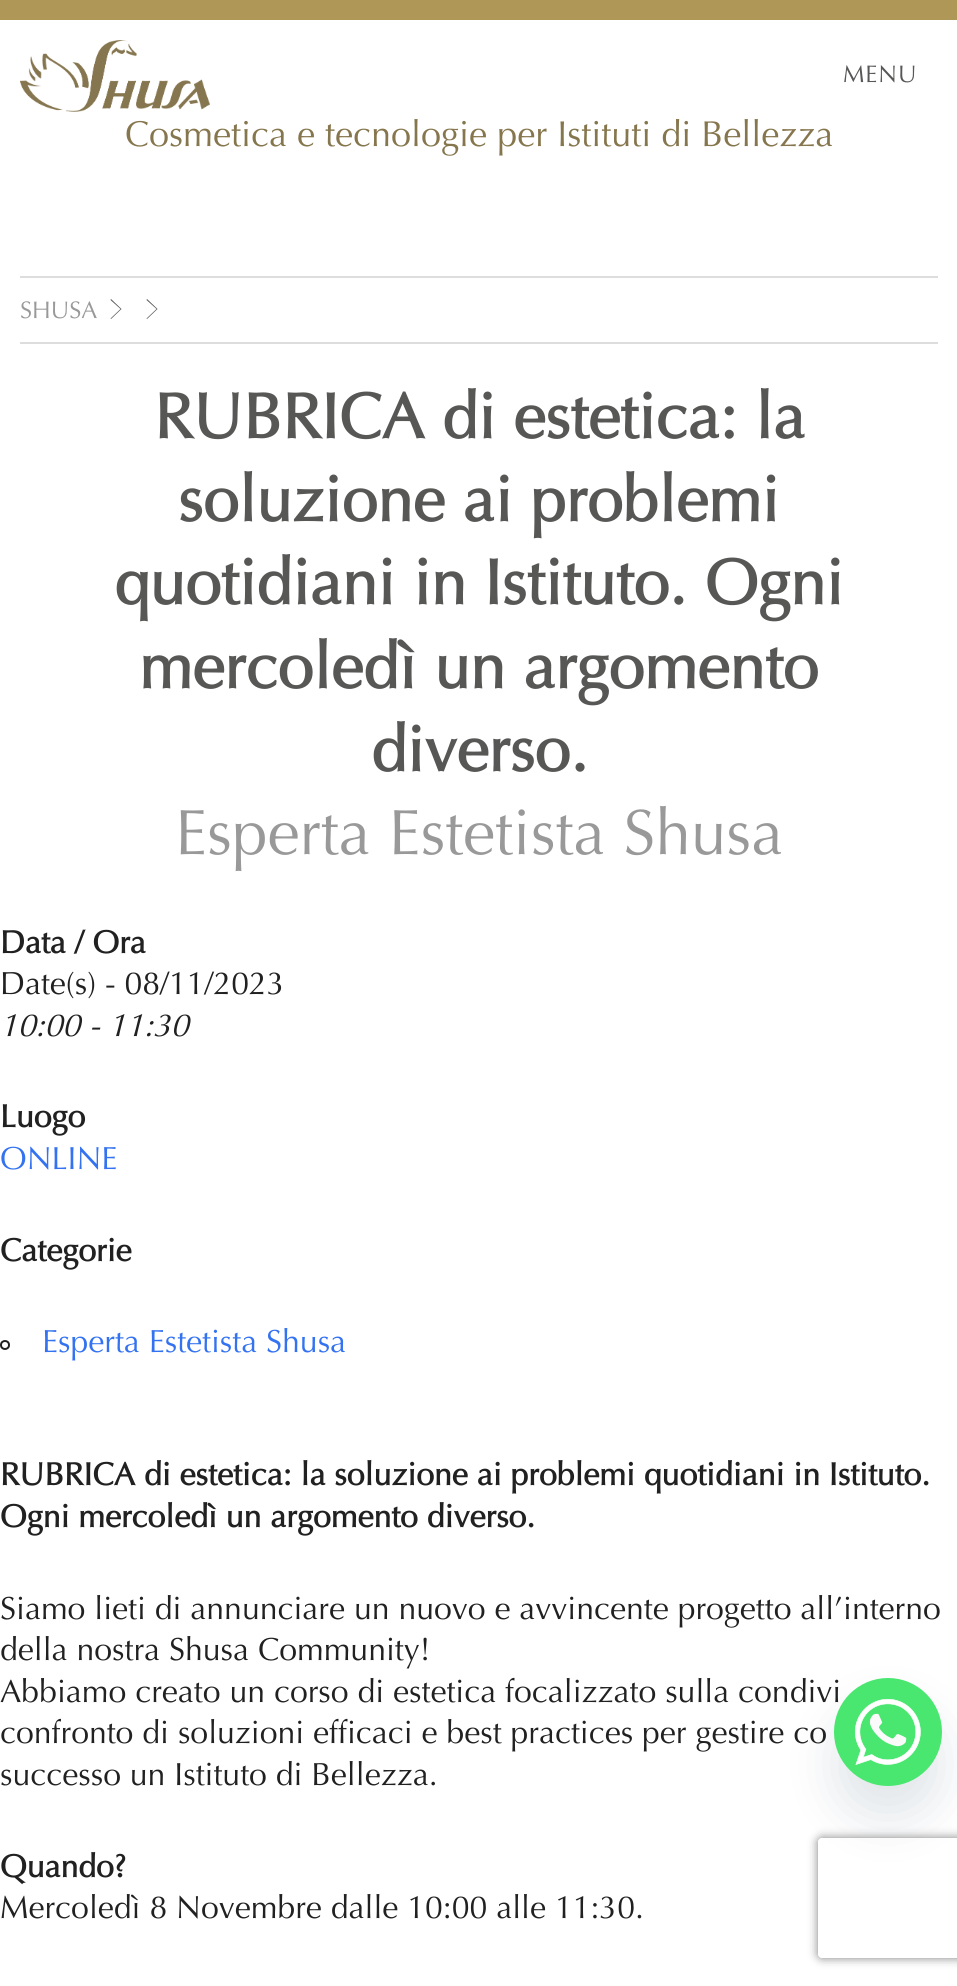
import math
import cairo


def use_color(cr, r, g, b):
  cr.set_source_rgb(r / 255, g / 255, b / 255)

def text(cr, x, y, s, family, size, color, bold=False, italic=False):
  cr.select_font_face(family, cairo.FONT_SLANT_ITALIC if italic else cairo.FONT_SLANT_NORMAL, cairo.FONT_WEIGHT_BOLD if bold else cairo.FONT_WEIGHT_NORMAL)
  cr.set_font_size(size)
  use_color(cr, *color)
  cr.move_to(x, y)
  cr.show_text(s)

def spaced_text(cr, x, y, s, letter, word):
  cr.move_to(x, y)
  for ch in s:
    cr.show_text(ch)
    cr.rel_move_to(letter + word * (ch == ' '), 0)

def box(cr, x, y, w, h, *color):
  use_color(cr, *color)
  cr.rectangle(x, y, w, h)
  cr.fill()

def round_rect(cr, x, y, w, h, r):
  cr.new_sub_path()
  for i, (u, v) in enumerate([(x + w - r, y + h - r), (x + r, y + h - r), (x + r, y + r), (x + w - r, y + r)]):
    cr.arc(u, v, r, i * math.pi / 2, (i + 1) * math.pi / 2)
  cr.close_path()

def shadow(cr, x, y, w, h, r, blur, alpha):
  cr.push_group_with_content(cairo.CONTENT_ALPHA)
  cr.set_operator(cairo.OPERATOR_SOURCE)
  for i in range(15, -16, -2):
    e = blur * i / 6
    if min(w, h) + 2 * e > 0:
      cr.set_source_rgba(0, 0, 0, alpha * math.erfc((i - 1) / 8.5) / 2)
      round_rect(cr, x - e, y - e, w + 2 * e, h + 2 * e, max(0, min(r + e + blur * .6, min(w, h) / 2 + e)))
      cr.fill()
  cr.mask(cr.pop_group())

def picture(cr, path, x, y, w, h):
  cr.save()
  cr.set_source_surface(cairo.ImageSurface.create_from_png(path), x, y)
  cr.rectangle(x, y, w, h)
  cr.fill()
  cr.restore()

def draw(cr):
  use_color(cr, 255, 255, 255)
  cr.paint()
  box(cr, 0, 0, 957, 20, 175, 152, 87)
  picture(cr, "img_01.png", 20, 40, 190, 72)
  box(cr, 20, 276, 918, 2, 221, 221, 221)
  box(cr, 20, 342, 918, 2, 221, 221, 221)
  use_color(cr, 87, 87, 86)
  cr.new_path()
  cr.move_to(111, 319)
  cr.line_to(110.5, 318.5)
  cr.line_to(120.5, 309)
  cr.line_to(110.5, 300)
  cr.line_to(111, 299)
  cr.line_to(121.5, 309)
  cr.close_path()
  cr.move_to(147, 319)
  cr.line_to(146.5, 318.5)
  cr.line_to(156.5, 309)
  cr.line_to(146.5, 300)
  cr.line_to(147, 299)
  cr.line_to(157.5, 309)
  cr.close_path()
  cr.fill()
  cr.arc(5, 1345, 4, 0, 2 * math.pi)
  use_color(cr, 33, 33, 33)
  cr.stroke()
  use_color(cr, 73, 104, 126)
  shadow(cr, 834, 1710, 108, 108, 54, 24, 0.16)
  cr.save()
  cr.set_fill_rule(cairo.FILL_RULE_EVEN_ODD)
  cr.new_path()
  cr.move_to(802, 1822)
  cr.line_to(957, 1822)
  cr.line_to(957, 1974)
  cr.line_to(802, 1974)
  cr.close_path()
  cr.move_to(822, 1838)
  cr.line_to(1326, 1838)
  cr.curve_to(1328, 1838, 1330, 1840, 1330, 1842)
  cr.line_to(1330, 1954)
  cr.curve_to(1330, 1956, 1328, 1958, 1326, 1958)
  cr.line_to(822, 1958)
  cr.curve_to(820, 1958, 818, 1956, 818, 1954)
  cr.line_to(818, 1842)
  cr.curve_to(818, 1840, 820, 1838, 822, 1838)
  cr.close_path()
  cr.clip()
  use_color(cr, 128, 128, 128)
  shadow(cr, 818, 1838, 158, 120, 4, 5, 1)
  cr.restore()
  cr.select_font_face("Optima")
  cr.set_font_size(24)
  use_color(cr, 87, 87, 86)
  spaced_text(cr, 843, 82, "MENU", 1, 0)
  text(cr, 125, 146, "Cosmetica e tecnologie per Istituti di Bellezza", "Optima", 36, (134, 118, 77))
  text(cr, 20, 318, "SHUSA", "Optima", 24, (153, 153, 153))
  text(cr, 154, 438, "RUBRICA di estetica: la", "Optima", 64, (87, 87, 86), bold=True)
  text(cr, 178, 521, "soluzione ai problemi", "Optima", 64, (87, 87, 86), bold=True)
  text(cr, 114, 604, "quotidiani in Istituto. Ogni", "Optima", 64, (87, 87, 86), bold=True)
  text(cr, 139, 688, "mercoledì un argomento", "Optima", 64, (87, 87, 86), bold=True)
  text(cr, 371, 771, "diverso.", "Optima", 64, (87, 87, 86), bold=True)
  text(cr, 175, 854, "Esperta Estetista Shusa", "Optima", 64, (153, 153, 153))
  text(cr, 0, 953, "Data / Ora", "Optima", 32, (33, 33, 33), bold=True)
  text(cr, 0, 994, "Date(s) - 08/11/2023", "Optima", 32, (33, 33, 33))
  text(cr, 0, 1036, "10:00 - 11:30", "Optima", 32, (33, 33, 33), italic=True)
  text(cr, 0, 1127, "Luogo", "Optima", 32, (33, 33, 33), bold=True)
  text(cr, 0, 1169, "ONLINE", "Optima", 32, (51, 114, 240))
  text(cr, 0, 1261, "Categorie", "Optima", 32, (33, 33, 33), bold=True)
  text(cr, 42, 1352, "Esperta Estetista Shusa", "Optima", 32, (51, 114, 240))
  text(cr, 0, 1485, "RUBRICA di estetica: la soluzione ai problemi quotidiani in Istituto.", "Optima", 32, (33, 33, 33), bold=True)
  text(cr, 0, 1527, "Ogni mercoledì un argomento diverso.", "Optima", 32, (33, 33, 33), bold=True)
  text(cr, 0, 1619, "Siamo lieti di annunciare un nuovo e avvincente progetto all’interno", "Optima", 32, (33, 33, 33))
  text(cr, 0, 1660, "della nostra Shusa Community!", "Optima", 32, (33, 33, 33))
  text(cr, 0, 1702, "Abbiamo creato un corso di estetica focalizzato sulla condivi", "Optima", 32, (33, 33, 33))
  text(cr, 0, 1743, "confronto di soluzioni efficaci e best practices per gestire co", "Optima", 32, (33, 33, 33))
  text(cr, 0, 1785, "successo un Istituto di Bellezza.", "Optima", 32, (33, 33, 33))
  text(cr, 0, 1877, "Quando?", "Optima", 32, (33, 33, 33), bold=True)
  text(cr, 0, 1918, "Mercoledì 8 Novembre dalle 10:00 alle 11:30.", "Optima", 32, (33, 33, 33))
  picture(cr, "img_02.png", 834, 1678, 108, 108)


surface = cairo.ImageSurface(cairo.FORMAT_RGB24, 957, 1986)
cr = cairo.Context(surface)
options = cairo.FontOptions()
options.set_hint_metrics(cairo.HINT_METRICS_OFF)
options.set_hint_style(cairo.HINT_STYLE_NONE)
cr.set_font_options(options)
cr.set_miter_limit(4)
draw(cr)
surface.write_to_png("out.png")
